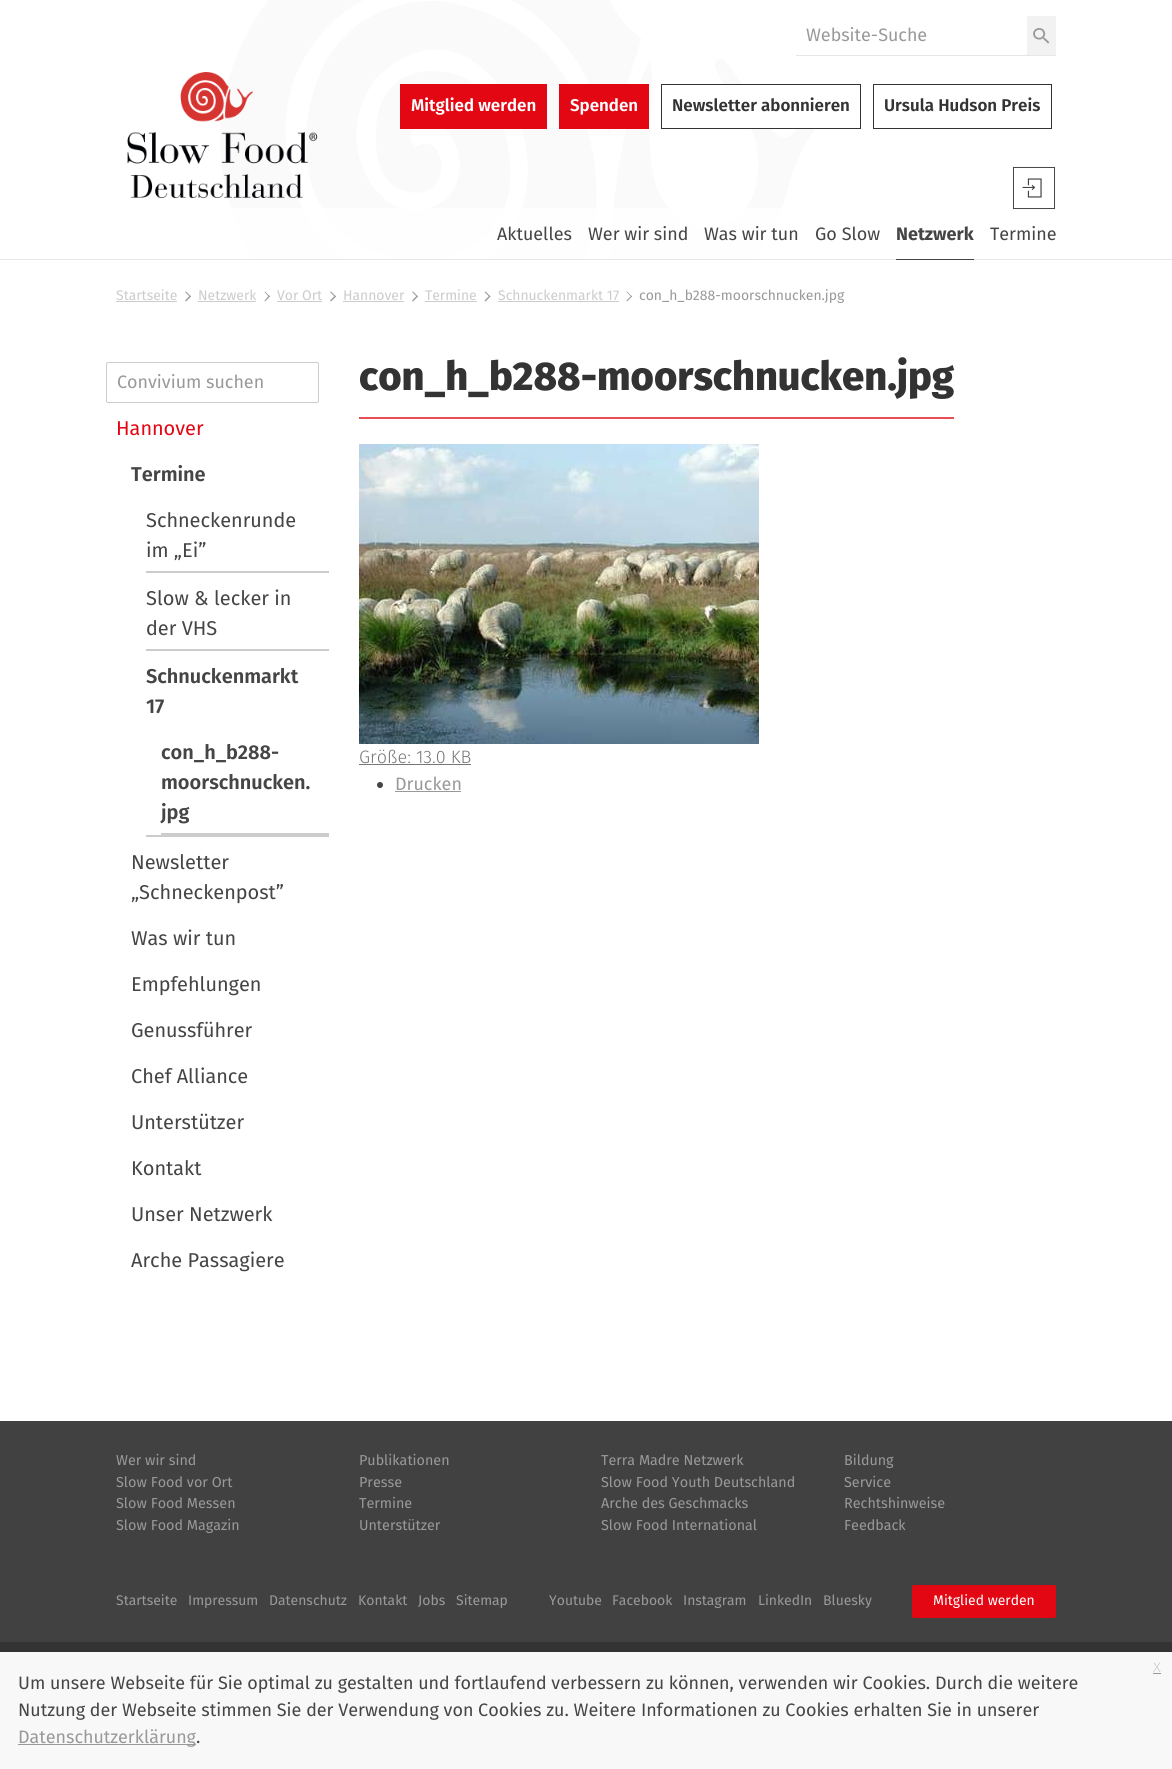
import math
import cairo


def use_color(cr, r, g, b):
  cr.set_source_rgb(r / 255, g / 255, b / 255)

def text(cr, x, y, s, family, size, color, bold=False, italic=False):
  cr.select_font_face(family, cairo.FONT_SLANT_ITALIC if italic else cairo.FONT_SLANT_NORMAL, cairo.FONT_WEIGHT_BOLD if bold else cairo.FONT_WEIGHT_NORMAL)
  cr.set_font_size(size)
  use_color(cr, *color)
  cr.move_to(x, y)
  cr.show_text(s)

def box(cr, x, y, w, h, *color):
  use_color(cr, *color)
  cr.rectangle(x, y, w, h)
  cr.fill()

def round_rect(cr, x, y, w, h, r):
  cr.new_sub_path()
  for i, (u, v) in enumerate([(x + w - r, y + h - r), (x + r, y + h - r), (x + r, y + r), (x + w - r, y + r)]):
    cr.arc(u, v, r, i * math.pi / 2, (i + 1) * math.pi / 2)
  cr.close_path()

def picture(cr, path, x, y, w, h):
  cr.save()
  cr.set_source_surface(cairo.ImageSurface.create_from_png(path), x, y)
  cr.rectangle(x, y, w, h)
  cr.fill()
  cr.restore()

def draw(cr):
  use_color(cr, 255, 255, 255)
  cr.paint()
  picture(cr, "img_01.png", 220, 0, 596, 259)
  box(cr, 0, 259, 1172, 1, 231, 231, 231)
  gradient = cairo.LinearGradient(586, 259, 586, 16)
  gradient.add_color_stop_rgba(0, 1, 1, 1, 0.75)
  gradient.add_color_stop_rgba(0.21, 1, 1, 1, 0.75)
  gradient.add_color_stop_rgba(0.21, 1, 1, 1, 0)
  gradient.add_color_stop_rgba(1, 0, 0, 0, 0)
  cr.set_source(gradient)
  cr.rectangle(231, 208, 551, 51)
  cr.fill()
  picture(cr, "img_02.png", 127, 72, 191, 126)
  box(cr, 796, 16, 260, 39, 242, 242, 242)
  box(cr, 796, 55, 260, 1, 231, 231, 231)
  use_color(cr, 255, 255, 255)
  round_rect(cr, 796, 16, 231, 39, 2)
  cr.fill()
  picture(cr, "img_03.png", 1033, 28, 17, 16)
  box(cr, 400, 84, 147, 45, 227, 6, 19)
  box(cr, 559, 84, 90, 45, 227, 6, 19)
  box(cr, 725, 85, 91, 43, 255, 255, 255)
  cr.rectangle(661.5, 84.5, 199, 44)
  use_color(cr, 51, 51, 51)
  cr.set_line_width(1)
  cr.stroke()
  cr.rectangle(873.5, 84.5, 178, 44)
  cr.stroke()
  box(cr, 896, 259, 78, 1, 69, 69, 69)
  picture(cr, "img_04.png", 1012, 166, 44, 44)
  box(cr, 116, 301, 61, 1, 204, 204, 204)
  use_color(cr, 153, 153, 153)
  cr.new_path()
  cr.move_to(186, 291.5)
  cr.line_to(191, 296.5)
  cr.line_to(190, 297)
  cr.line_to(185, 292)
  cr.close_path()
  cr.fill()
  cr.new_path()
  cr.move_to(185, 300.5)
  cr.line_to(190, 295.5)
  cr.line_to(191, 296.5)
  cr.line_to(186, 301.5)
  cr.close_path()
  cr.fill()
  box(cr, 198, 301, 58, 1, 204, 204, 204)
  use_color(cr, 153, 153, 153)
  cr.new_path()
  cr.move_to(265, 291.5)
  cr.line_to(270, 296.5)
  cr.line_to(269, 297)
  cr.line_to(264.5, 292)
  cr.close_path()
  cr.fill()
  cr.new_path()
  cr.move_to(264.5, 300.5)
  cr.line_to(269, 295.5)
  cr.line_to(270, 296.5)
  cr.line_to(265, 301.5)
  cr.close_path()
  cr.fill()
  box(cr, 277, 301, 45, 1, 204, 204, 204)
  use_color(cr, 153, 153, 153)
  cr.new_path()
  cr.move_to(331, 291.5)
  cr.line_to(336, 296.5)
  cr.line_to(335, 297)
  cr.line_to(330, 292)
  cr.close_path()
  cr.fill()
  cr.new_path()
  cr.move_to(330, 300.5)
  cr.line_to(335, 295.5)
  cr.line_to(336, 296.5)
  cr.line_to(331, 301.5)
  cr.close_path()
  cr.fill()
  box(cr, 343, 301, 61, 1, 204, 204, 204)
  use_color(cr, 153, 153, 153)
  cr.new_path()
  cr.move_to(413, 291.5)
  cr.line_to(418, 296.5)
  cr.line_to(417, 297)
  cr.line_to(412, 292)
  cr.close_path()
  cr.fill()
  cr.new_path()
  cr.move_to(412, 300.5)
  cr.line_to(417, 295.5)
  cr.line_to(418, 296.5)
  cr.line_to(413, 301.5)
  cr.close_path()
  cr.fill()
  box(cr, 425, 301, 52, 1, 204, 204, 204)
  use_color(cr, 153, 153, 153)
  cr.new_path()
  cr.move_to(485.5, 291.5)
  cr.line_to(490.5, 296.5)
  cr.line_to(489.5, 297)
  cr.line_to(484.5, 292)
  cr.close_path()
  cr.fill()
  cr.new_path()
  cr.move_to(484.5, 300.5)
  cr.line_to(489.5, 295.5)
  cr.line_to(490.5, 296.5)
  cr.line_to(485.5, 301.5)
  cr.close_path()
  cr.fill()
  box(cr, 498, 301, 121, 1, 204, 204, 204)
  use_color(cr, 153, 153, 153)
  cr.new_path()
  cr.move_to(627, 291.5)
  cr.line_to(632, 296.5)
  cr.line_to(631.5, 297)
  cr.line_to(626.5, 292)
  cr.close_path()
  cr.fill()
  cr.new_path()
  cr.move_to(626.5, 300.5)
  cr.line_to(631.5, 295.5)
  cr.line_to(632, 296.5)
  cr.line_to(627, 301.5)
  cr.close_path()
  cr.fill()
  box(cr, 0, 1652, 1172, 117, 248, 248, 249)
  box(cr, 1153, 1673, 8, 1, 153, 153, 153)
  box(cr, 18, 1744, 178, 1, 153, 153, 153)
  round_rect(cr, 106.5, 362.5, 212, 40, 1.5)
  use_color(cr, 204, 204, 204)
  cr.stroke()
  box(cr, 146, 571, 183, 2, 204, 204, 204)
  box(cr, 146, 649, 183, 2, 204, 204, 204)
  box(cr, 146, 835, 183, 2, 204, 204, 204)
  box(cr, 161, 833, 168, 2, 204, 204, 204)
  box(cr, 359, 417, 595, 2, 232, 76, 85)
  picture(cr, "img_05.png", 359, 444, 400, 300)
  box(cr, 359, 764, 112, 1, 119, 119, 119)
  use_color(cr, 69, 69, 69)
  cr.arc(380, 785, 3, 0, 2 * math.pi)
  cr.fill()
  box(cr, 395, 791, 66, 1, 153, 153, 153)
  box(cr, 0, 1421, 1172, 221, 65, 65, 65)
  use_color(cr, 227, 6, 19)
  round_rect(cr, 912, 1585, 144, 33, 2)
  cr.fill()
  box(cr, 0, 1642, 1172, 10, 51, 51, 51)
  text(cr, 806, 41, "Website-Suche", "Fira Sans", 18, (153, 153, 153))
  text(cr, 411, 111, "Mitglied werden", "Fira Sans SemiBold", 17, (255, 255, 255))
  text(cr, 570, 111, "Spenden", "Fira Sans SemiBold", 17, (255, 255, 255))
  text(cr, 672, 111, "Newsletter abonnieren", "Fira Sans SemiBold", 17, (51, 51, 51))
  text(cr, 884, 111, "Ursula Hudson Preis", "Fira Sans SemiBold", 17, (51, 51, 51))
  text(cr, 497, 240, "Aktuelles", "Fira Sans", 18, (69, 69, 69))
  text(cr, 588, 240, "Wer wir sind", "Fira Sans", 18, (69, 69, 69))
  text(cr, 704, 240, "Was wir tun", "Fira Sans", 18, (69, 69, 69))
  text(cr, 815, 240, "Go Slow", "Fira Sans", 18, (69, 69, 69))
  text(cr, 896, 240, "Netzwerk", "Fira Sans", 18, (69, 69, 69), bold=True)
  text(cr, 990, 240, "Termine", "Fira Sans", 18, (69, 69, 69))
  text(cr, 116, 300, "Startseite", "Fira Sans", 14, (204, 204, 204))
  text(cr, 198, 300, "Netzwerk", "Fira Sans", 14, (204, 204, 204))
  text(cr, 277, 300, "Vor Ort", "Fira Sans", 14, (204, 204, 204))
  text(cr, 343, 300, "Hannover", "Fira Sans", 14, (204, 204, 204))
  text(cr, 425, 300, "Termine", "Fira Sans", 14, (204, 204, 204))
  text(cr, 498, 300, "Schnuckenmarkt 17", "Fira Sans", 14, (204, 204, 204))
  text(cr, 639, 300, "con_h_b288-moorschnucken.jpg", "Fira Sans", 14, (153, 153, 153))
  text(cr, 1153, 1672, "x", "Fira Sans Thin", 18, (153, 153, 153))
  text(cr, 18, 1689, "Um unsere Webseite für Sie optimal zu gestalten und fortlaufend verbessern zu können, verwenden wir Cookies. Durch die weitere", "Fira Sans", 18, (69, 69, 69))
  text(cr, 18, 1716, "Nutzung der Webseite stimmen Sie der Verwendung von Cookies zu. Weitere Informationen zu Cookies erhalten Sie in unserer", "Fira Sans", 18, (69, 69, 69))
  text(cr, 18, 1743, "Datenschutzerklärung", "Fira Sans", 18, (153, 153, 153))
  text(cr, 196, 1743, ".", "Fira Sans", 18, (69, 69, 69))
  text(cr, 117, 388, "Convivium suchen", "Fira Sans", 18, (153, 153, 153))
  text(cr, 116, 435, "Hannover", "Fira Sans", 20, (227, 6, 19))
  text(cr, 131, 481, "Termine", "Fira Sans SemiBold", 20, (69, 69, 69))
  text(cr, 146, 527, "Schneckenrunde", "Fira Sans", 20, (69, 69, 69))
  text(cr, 146, 557, "im „Ei”", "Fira Sans", 20, (69, 69, 69))
  text(cr, 146, 605, "Slow & lecker in", "Fira Sans", 20, (69, 69, 69))
  text(cr, 146, 635, "der VHS", "Fira Sans", 20, (69, 69, 69))
  text(cr, 146, 683, "Schnuckenmarkt", "Fira Sans SemiBold", 20, (69, 69, 69))
  text(cr, 146, 713, "17", "Fira Sans SemiBold", 20, (69, 69, 69))
  text(cr, 161, 759, "con_h_b288-", "Fira Sans SemiBold", 20, (69, 69, 69))
  text(cr, 161, 789, "moorschnucken.", "Fira Sans SemiBold", 20, (69, 69, 69))
  text(cr, 161, 819, "jpg", "Fira Sans SemiBold", 20, (69, 69, 69))
  text(cr, 131, 869, "Newsletter", "Fira Sans", 20, (69, 69, 69))
  text(cr, 131, 899, "„Schneckenpost”", "Fira Sans", 20, (69, 69, 69))
  text(cr, 131, 945, "Was wir tun", "Fira Sans", 20, (69, 69, 69))
  text(cr, 131, 991, "Empfehlungen", "Fira Sans", 20, (69, 69, 69))
  text(cr, 131, 1037, "Genussführer", "Fira Sans", 20, (69, 69, 69))
  text(cr, 131, 1083, "Chef Alliance", "Fira Sans", 20, (69, 69, 69))
  text(cr, 131, 1129, "Unterstützer", "Fira Sans", 20, (69, 69, 69))
  text(cr, 131, 1175, "Kontakt", "Fira Sans", 20, (69, 69, 69))
  text(cr, 131, 1221, "Unser Netzwerk", "Fira Sans", 20, (69, 69, 69))
  text(cr, 131, 1267, "Arche Passagiere", "Fira Sans", 20, (69, 69, 69))
  text(cr, 359, 390, "con_h_b288-moorschnucken.jpg", "Fira Sans ExtraBold", 40, (51, 51, 51))
  text(cr, 359, 763, "Größe: 13.0 KB", "Fira Sans Light", 18, (119, 119, 119))
  text(cr, 395, 790, "Drucken", "Fira Sans", 18, (153, 153, 153))
  text(cr, 116, 1465, "Wer wir sind", "Fira Sans", 14.4, (153, 153, 153))
  text(cr, 116, 1487, "Slow Food vor Ort", "Fira Sans", 14.4, (153, 153, 153))
  text(cr, 116, 1508, "Slow Food Messen", "Fira Sans", 14.4, (153, 153, 153))
  text(cr, 116, 1530, "Slow Food Magazin", "Fira Sans", 14.4, (153, 153, 153))
  text(cr, 359, 1465, "Publikationen", "Fira Sans", 14.4, (153, 153, 153))
  text(cr, 359, 1487, "Presse", "Fira Sans", 14.4, (153, 153, 153))
  text(cr, 359, 1508, "Termine", "Fira Sans", 14.4, (153, 153, 153))
  text(cr, 359, 1530, "Unterstützer", "Fira Sans", 14.4, (153, 153, 153))
  text(cr, 601, 1465, "Terra Madre Netzwerk", "Fira Sans", 14.4, (153, 153, 153))
  text(cr, 601, 1487, "Slow Food Youth Deutschland", "Fira Sans", 14.4, (153, 153, 153))
  text(cr, 601, 1508, "Arche des Geschmacks", "Fira Sans", 14.4, (153, 153, 153))
  text(cr, 601, 1530, "Slow Food International", "Fira Sans", 14.4, (153, 153, 153))
  text(cr, 844, 1465, "Bildung", "Fira Sans", 14.4, (153, 153, 153))
  text(cr, 844, 1487, "Service", "Fira Sans", 14.4, (153, 153, 153))
  text(cr, 844, 1508, "Rechtshinweise", "Fira Sans", 14.4, (153, 153, 153))
  text(cr, 844, 1530, "Feedback", "Fira Sans", 14.4, (153, 153, 153))
  text(cr, 116, 1605, "Startseite", "Fira Sans", 14, (153, 153, 153))
  text(cr, 188, 1605, "Impressum", "Fira Sans", 14, (153, 153, 153))
  text(cr, 269, 1605, "Datenschutz", "Fira Sans", 14, (153, 153, 153))
  text(cr, 358, 1605, "Kontakt", "Fira Sans", 14, (153, 153, 153))
  text(cr, 418, 1605, "Jobs", "Fira Sans", 14, (153, 153, 153))
  text(cr, 456, 1605, "Sitemap", "Fira Sans", 14, (153, 153, 153))
  text(cr, 549, 1605, "Youtube", "Fira Sans", 14, (153, 153, 153))
  text(cr, 612, 1605, "Facebook", "Fira Sans", 14, (153, 153, 153))
  text(cr, 683, 1605, "Instagram", "Fira Sans", 14, (153, 153, 153))
  text(cr, 758, 1605, "LinkedIn", "Fira Sans", 14, (153, 153, 153))
  text(cr, 823, 1605, "Bluesky", "Fira Sans", 14, (153, 153, 153))
  text(cr, 933, 1605, "Mitglied werden", "Fira Sans", 14, (255, 255, 255))


surface = cairo.ImageSurface(cairo.FORMAT_RGB24, 1172, 1769)
cr = cairo.Context(surface)
options = cairo.FontOptions()
options.set_hint_metrics(cairo.HINT_METRICS_OFF)
options.set_hint_style(cairo.HINT_STYLE_NONE)
cr.set_font_options(options)
cr.set_miter_limit(4)
draw(cr)
surface.write_to_png("out.png")
